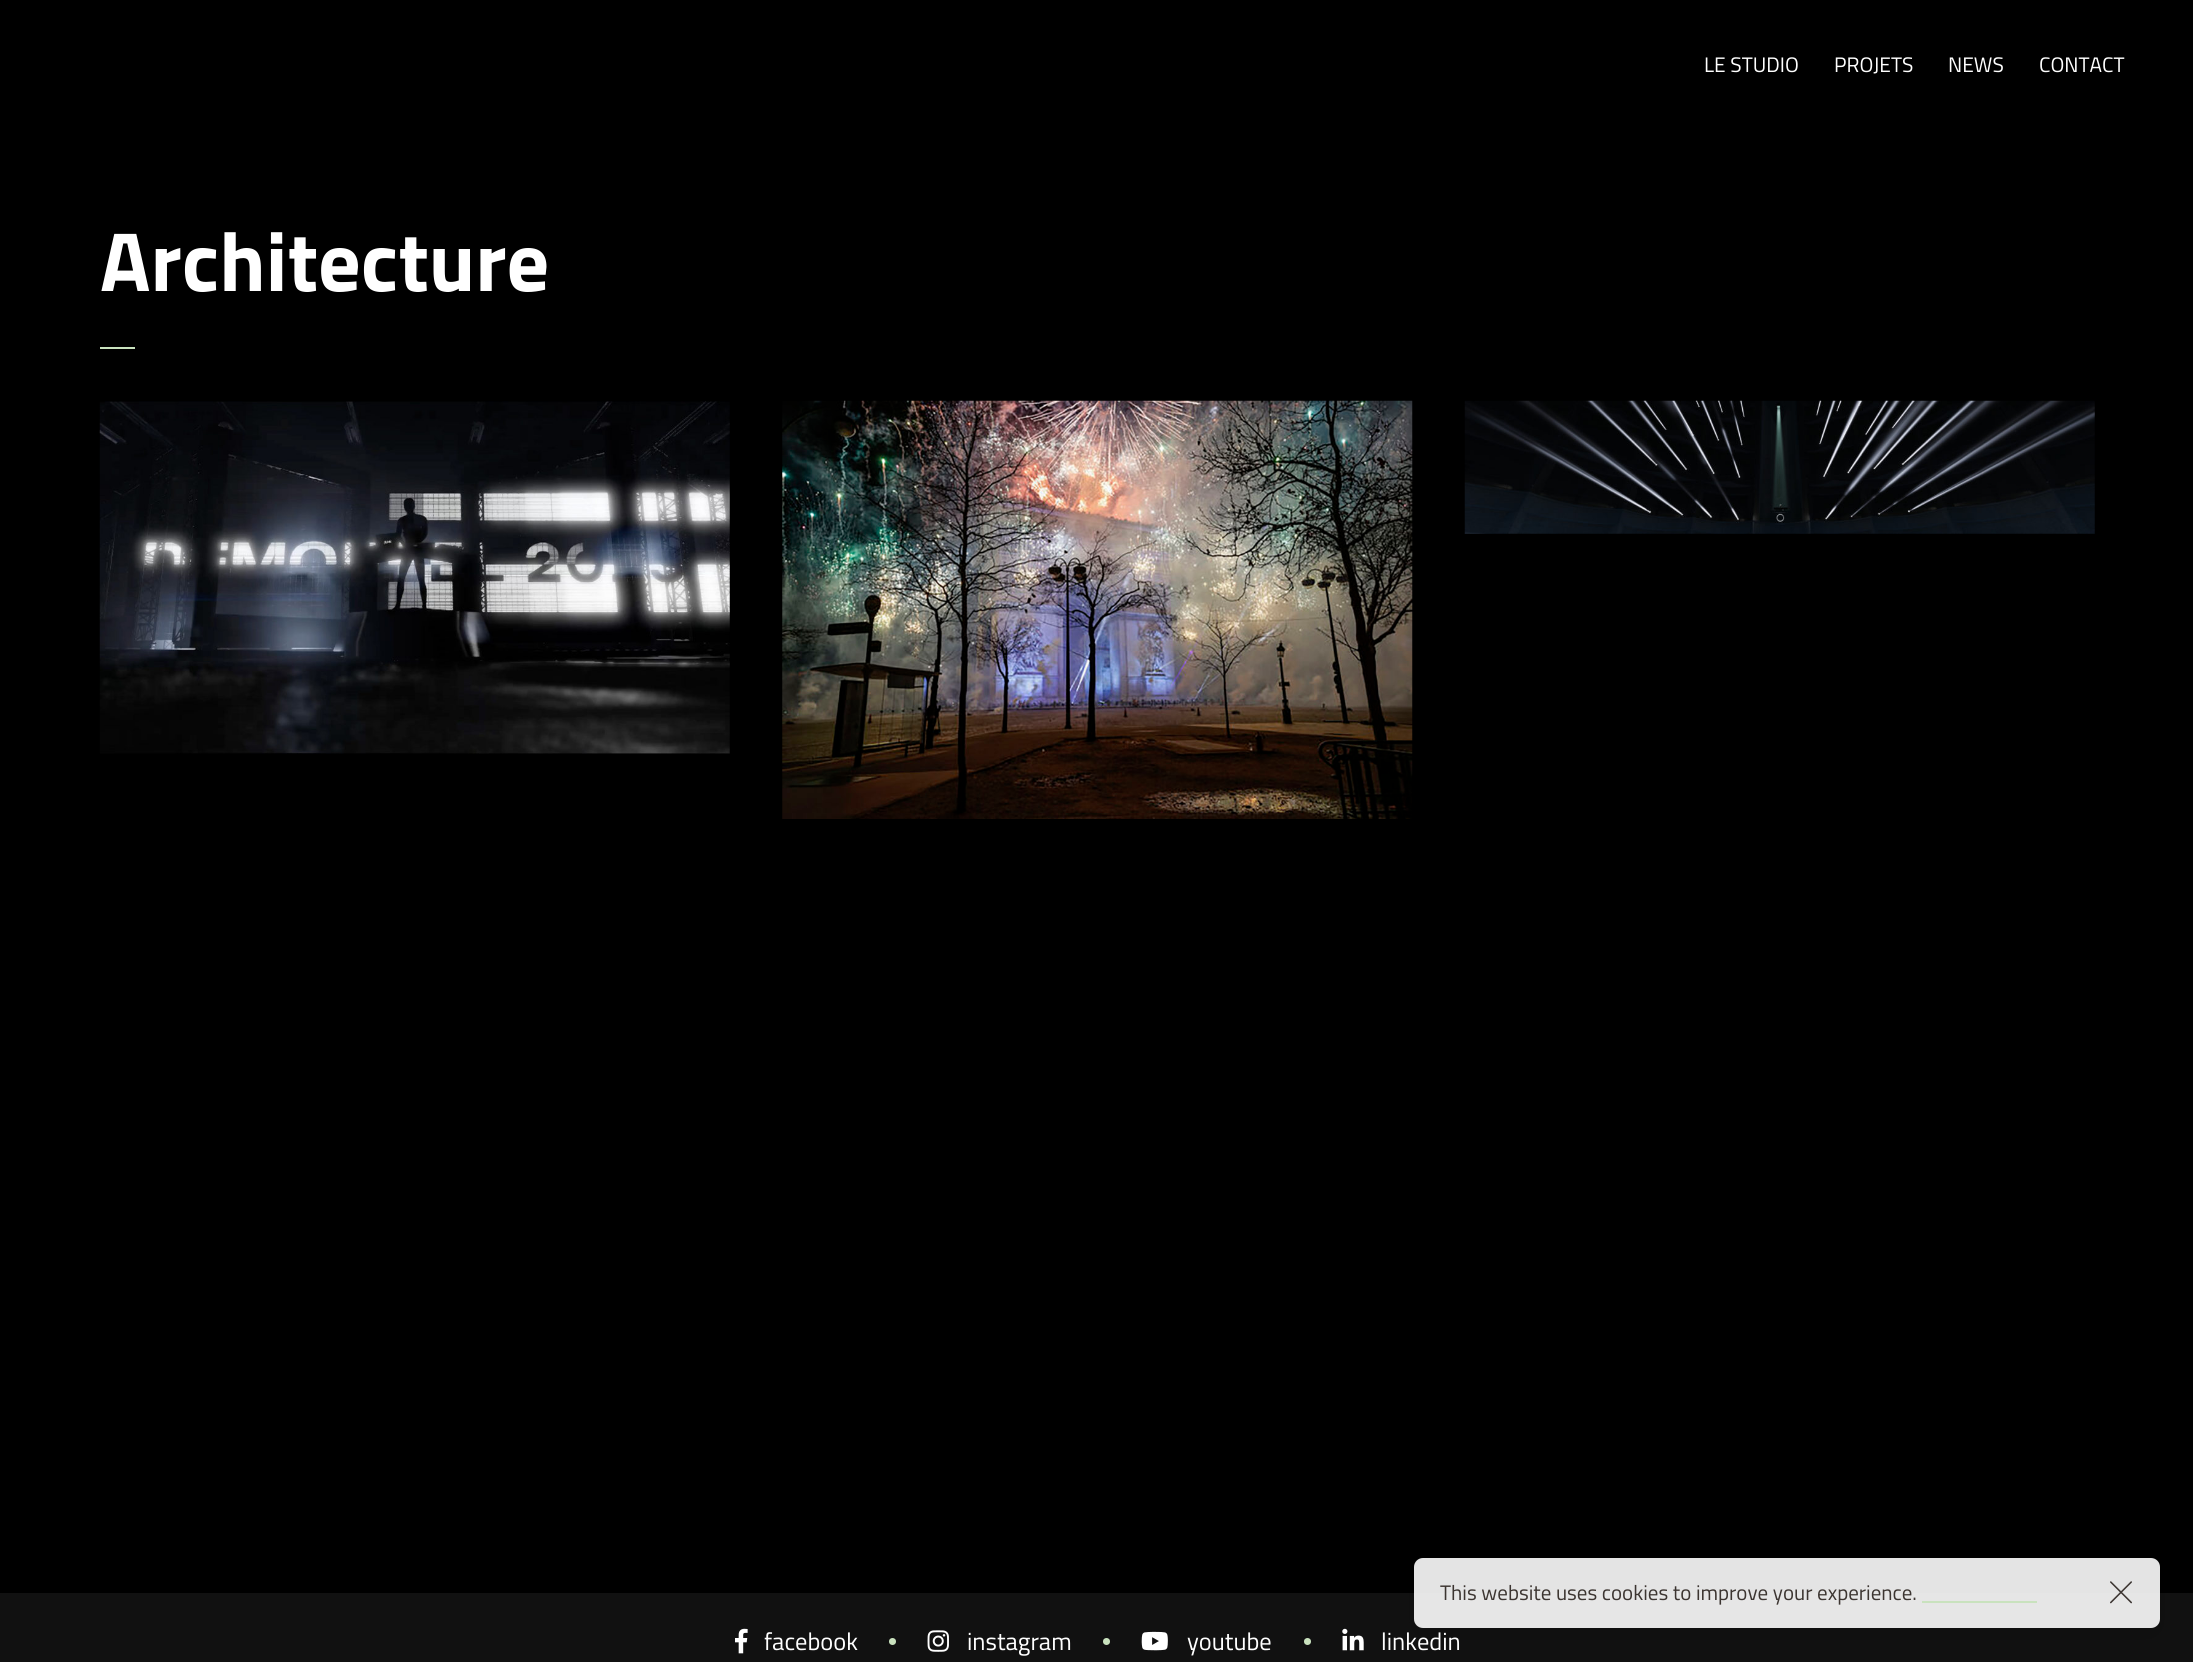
import math
import cairo


def use_color(cr, r, g, b):
  cr.set_source_rgb(r / 255, g / 255, b / 255)

def text(cr, x, y, s, family, size, color, bold=False, italic=False):
  cr.select_font_face(family, cairo.FONT_SLANT_ITALIC if italic else cairo.FONT_SLANT_NORMAL, cairo.FONT_WEIGHT_BOLD if bold else cairo.FONT_WEIGHT_NORMAL)
  cr.set_font_size(size)
  use_color(cr, *color)
  cr.move_to(x, y)
  cr.show_text(s)

def box(cr, x, y, w, h, *color):
  use_color(cr, *color)
  cr.rectangle(x, y, w, h)
  cr.fill()

def round_rect(cr, x, y, w, h, r):
  cr.new_sub_path()
  for i, (u, v) in enumerate([(x + w - r, y + h - r), (x + r, y + h - r), (x + r, y + r), (x + w - r, y + r)]):
    cr.arc(u, v, r, i * math.pi / 2, (i + 1) * math.pi / 2)
  cr.close_path()

def shadow(cr, x, y, w, h, r, blur, alpha):
  cr.push_group_with_content(cairo.CONTENT_ALPHA)
  cr.set_operator(cairo.OPERATOR_SOURCE)
  for i in range(15, -16, -2):
    e = blur * i / 6
    if min(w, h) + 2 * e > 0:
      cr.set_source_rgba(0, 0, 0, alpha * math.erfc((i - 1) / 8.5) / 2)
      round_rect(cr, x - e, y - e, w + 2 * e, h + 2 * e, max(0, min(r + e + blur * .6, min(w, h) / 2 + e)))
      cr.fill()
  cr.mask(cr.pop_group())

def picture(cr, path, x, y, w, h):
  cr.save()
  cr.set_source_surface(cairo.ImageSurface.create_from_png(path), x, y)
  cr.rectangle(x, y, w, h)
  cr.fill()
  cr.restore()

def draw(cr):
  use_color(cr, 0, 0, 0)
  cr.paint()
  box(cr, 100, 347, 35, 2, 201, 226, 190)
  picture(cr, "img_01.png", 99, 401, 631, 353)
  picture(cr, "img_02.png", 782, 400, 631, 419)
  picture(cr, "img_03.png", 1464, 400, 631, 134)
  box(cr, 0, 1593, 2193, 69, 17, 17, 17)
  cr.save()
  cr.set_fill_rule(cairo.FILL_RULE_EVEN_ODD)
  cr.new_path()
  cr.move_to(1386, 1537)
  cr.line_to(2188, 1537)
  cr.line_to(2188, 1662)
  cr.line_to(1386, 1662)
  cr.close_path()
  cr.move_to(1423, 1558)
  cr.line_to(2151, 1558)
  cr.curve_to(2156, 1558, 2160, 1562, 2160, 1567)
  cr.line_to(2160, 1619)
  cr.curve_to(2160, 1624, 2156, 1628, 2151, 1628)
  cr.line_to(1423, 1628)
  cr.curve_to(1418, 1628, 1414, 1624, 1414, 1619)
  cr.line_to(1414, 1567)
  cr.curve_to(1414, 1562, 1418, 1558, 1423, 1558)
  cr.close_path()
  cr.clip()
  use_color(cr, 0, 0, 0)
  shadow(cr, 1414, 1565, 746, 70, 9, 9, 0.1)
  cr.restore()
  cr.set_source_rgba(0.992, 0.992, 0.992, 0.9)
  round_rect(cr, 1414, 1558, 746, 70, 9)
  cr.fill()
  box(cr, 1922, 1601, 115, 2, 201, 226, 190)
  picture(cr, "img_04.png", 2110, 1581, 22, 23)
  picture(cr, "img_05.png", 735, 1628, 13, 26)
  cr.arc(892.5, 1641.5, 3.5, 0, 2 * math.pi)
  cr.fill()
  picture(cr, "img_06.png", 927, 1630, 22, 22)
  cr.arc(1106.5, 1641.5, 3.5, 0, 2 * math.pi)
  cr.fill()
  picture(cr, "img_07.png", 1141, 1631, 27, 20)
  cr.arc(1307.5, 1641.5, 3.5, 0, 2 * math.pi)
  cr.fill()
  picture(cr, "img_08.png", 1342, 1628, 22, 23)
  text(cr, 1704, 72, "LE STUDIO", "Titillium Web", 21, (255, 255, 255))
  text(cr, 1834, 72, "PROJETS", "Titillium Web", 21, (255, 255, 255))
  text(cr, 1948, 72, "NEWS", "Titillium Web", 21, (255, 255, 255))
  text(cr, 2039, 72, "CONTACT", "Titillium Web", 21, (255, 255, 255))
  text(cr, 100, 291, "Architecture", "Titillium Web", 84, (255, 255, 255), bold=True)
  text(cr, 1440, 1600, "This website uses cookies to improve your experience.", "Titillium Web", 21, (60, 53, 49))
  text(cr, 764, 1650, "facebook", "Titillium Web", 24.5, (255, 255, 255))
  text(cr, 967, 1650, "instagram", "Titillium Web", 24.5, (255, 255, 255))
  text(cr, 1187, 1650, "youtube", "Titillium Web", 24.5, (255, 255, 255))
  text(cr, 1381, 1650, "linkedin", "Titillium Web", 24.5, (255, 255, 255))


surface = cairo.ImageSurface(cairo.FORMAT_RGB24, 2193, 1662)
cr = cairo.Context(surface)
options = cairo.FontOptions()
options.set_hint_metrics(cairo.HINT_METRICS_OFF)
options.set_hint_style(cairo.HINT_STYLE_NONE)
cr.set_font_options(options)
cr.set_miter_limit(4)
draw(cr)
surface.write_to_png("out.png")
